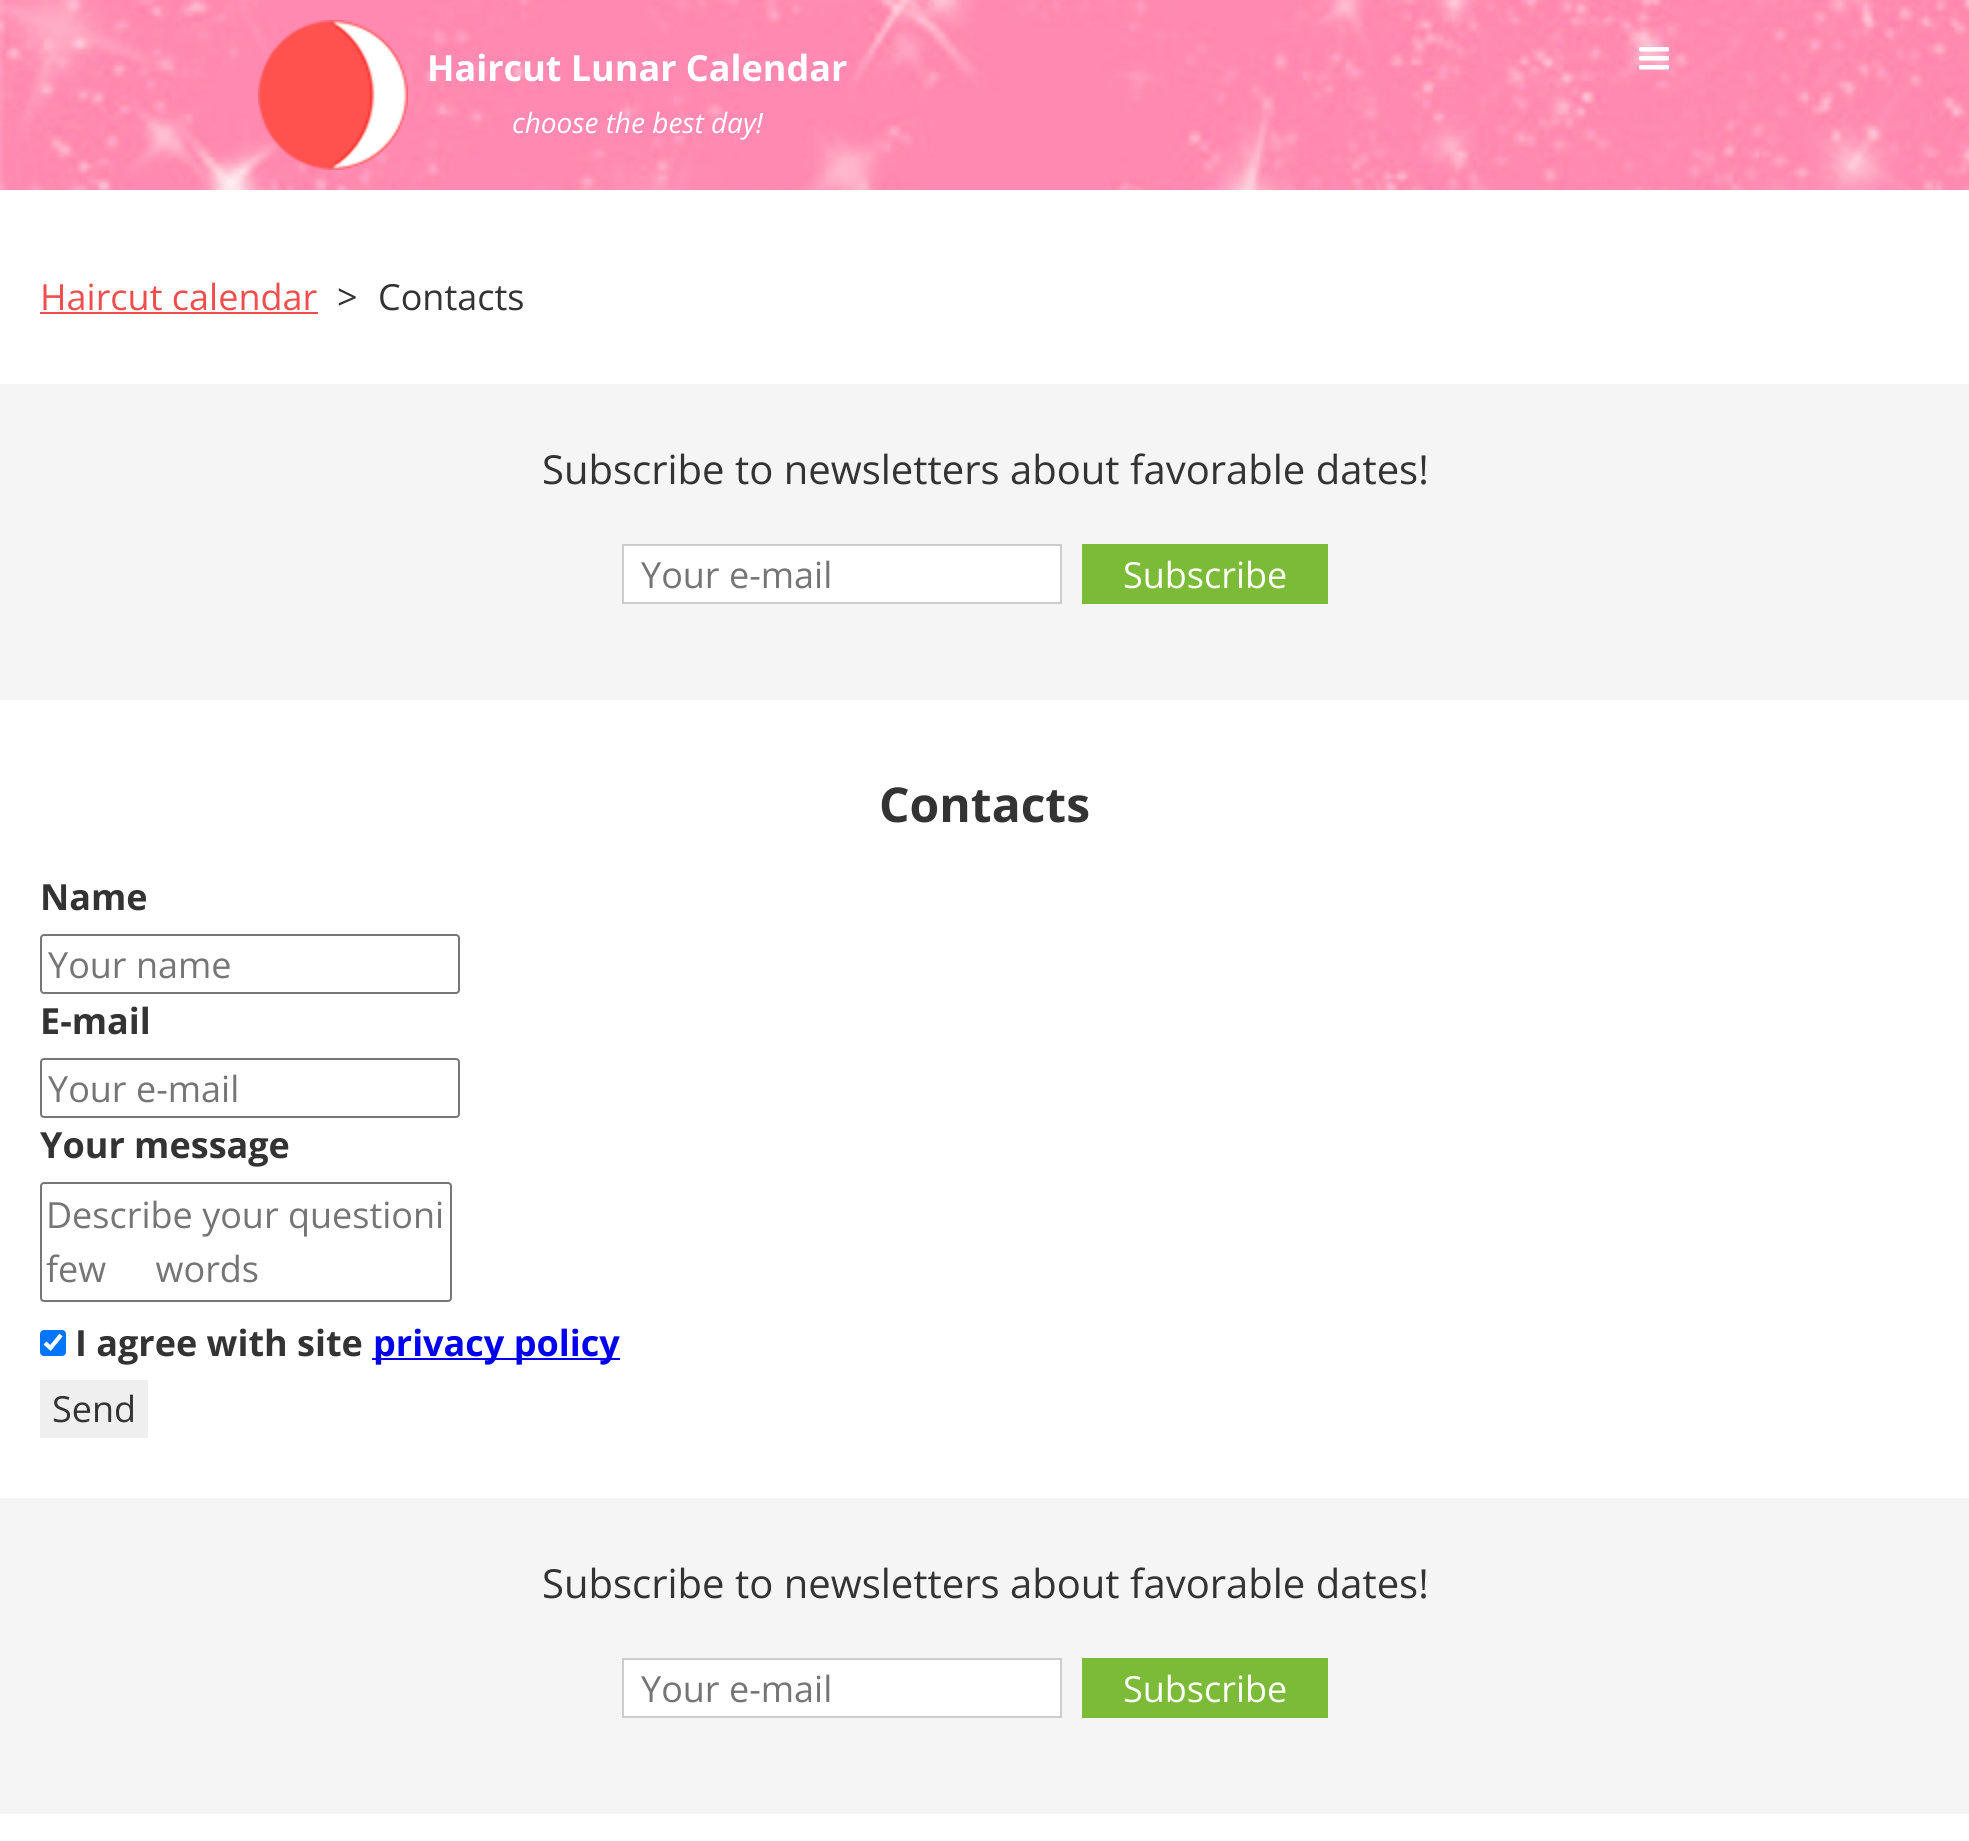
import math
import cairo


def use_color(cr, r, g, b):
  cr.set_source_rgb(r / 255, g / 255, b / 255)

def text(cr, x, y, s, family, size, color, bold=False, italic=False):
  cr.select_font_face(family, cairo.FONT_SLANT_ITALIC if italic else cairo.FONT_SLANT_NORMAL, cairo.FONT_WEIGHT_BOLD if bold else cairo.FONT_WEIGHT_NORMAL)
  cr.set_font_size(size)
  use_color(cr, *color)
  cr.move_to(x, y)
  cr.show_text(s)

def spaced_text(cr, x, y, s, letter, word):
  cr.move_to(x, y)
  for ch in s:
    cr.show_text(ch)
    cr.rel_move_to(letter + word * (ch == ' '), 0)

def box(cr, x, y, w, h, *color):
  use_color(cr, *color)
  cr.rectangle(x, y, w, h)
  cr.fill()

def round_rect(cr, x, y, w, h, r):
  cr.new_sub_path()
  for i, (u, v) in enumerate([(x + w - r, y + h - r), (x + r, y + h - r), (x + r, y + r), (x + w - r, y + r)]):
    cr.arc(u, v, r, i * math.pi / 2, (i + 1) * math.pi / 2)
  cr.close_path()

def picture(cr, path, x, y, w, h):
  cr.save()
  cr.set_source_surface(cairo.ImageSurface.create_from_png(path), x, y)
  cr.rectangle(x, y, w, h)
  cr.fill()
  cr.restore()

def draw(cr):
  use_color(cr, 255, 255, 255)
  cr.paint()
  picture(cr, "img_01.png", 0, 0, 1969, 190)
  picture(cr, "img_02.png", 258, 20, 150, 150)
  picture(cr, "img_03.png", 1639, 47, 30, 23)
  box(cr, 40, 312, 278, 2, 240, 77, 77)
  box(cr, 0, 384, 1969, 316, 245, 245, 245)
  use_color(cr, 255, 255, 255)
  cr.rectangle(623, 545, 438, 58)
  cr.fill_preserve()
  use_color(cr, 204, 204, 204)
  cr.stroke()
  box(cr, 1082, 544, 246, 60, 123, 187, 55)
  round_rect(cr, 41, 935, 418, 58, 3)
  use_color(cr, 118, 118, 118)
  cr.stroke()
  round_rect(cr, 41, 1059, 418, 58, 3)
  cr.stroke()
  round_rect(cr, 41, 1183, 410, 118, 3)
  cr.stroke()
  use_color(cr, 0, 117, 255)
  round_rect(cr, 40, 1330, 26, 26, 4)
  cr.fill()
  cr.new_path()
  cr.move_to(45, 1343)
  cr.line_to(50.5, 1348)
  cr.line_to(61, 1335)
  use_color(cr, 255, 255, 255)
  cr.set_line_width(4.2)
  cr.stroke()
  box(cr, 372, 1358, 248, 2, 0, 0, 238)
  box(cr, 40, 1380, 108, 58, 239, 239, 239)
  box(cr, 0, 1498, 1969, 316, 245, 245, 245)
  use_color(cr, 255, 255, 255)
  cr.rectangle(623, 1659, 438, 58)
  cr.fill_preserve()
  use_color(cr, 204, 204, 204)
  cr.set_line_width(2)
  cr.stroke()
  box(cr, 1082, 1658, 246, 60, 123, 187, 55)
  text(cr, 427, 81, "Haircut Lunar Calendar", "Open Sans", 36, (255, 255, 255), bold=True)
  text(cr, 512, 133, "choose the best day!", "Open Sans", 28, (255, 255, 255), italic=True)
  text(cr, 40, 310, "Haircut calendar", "Open Sans", 36, (240, 77, 77))
  text(cr, 337, 310, ">", "Open Sans", 36, (51, 51, 51))
  text(cr, 378, 310, "Contacts", "Open Sans", 36, (51, 51, 51))
  text(cr, 542, 484, "Subscribe to newsletters about favorable dates!", "Open Sans", 40, (51, 51, 51))
  text(cr, 641, 588, "Your e-mail", "Open Sans", 36, (117, 117, 117))
  text(cr, 1123, 588, "Subscribe", "Open Sans", 36, (255, 255, 255))
  text(cr, 879, 822, "Contacts", "Open Sans", 48, (51, 51, 51), bold=True)
  text(cr, 40, 910, "Name", "Open Sans", 36, (51, 51, 51), bold=True)
  text(cr, 48, 978, "Your name", "Open Sans", 36, (117, 117, 117))
  text(cr, 40, 1034, "E-mail", "Open Sans", 36, (51, 51, 51), bold=True)
  text(cr, 48, 1102, "Your e-mail", "Open Sans", 36, (117, 117, 117))
  text(cr, 40, 1158, "Your message", "Open Sans", 36, (51, 51, 51), bold=True)
  text(cr, 46, 1228, "Describe your questioni", "Open Sans", 36, (117, 117, 117))
  spaced_text(cr, 46, 1282, "few words", 0, 40)
  text(cr, 75, 1356, "I agree with site", "Open Sans", 36, (51, 51, 51), bold=True)
  text(cr, 373, 1356, "privacy policy", "Open Sans", 36, (0, 0, 238), bold=True)
  text(cr, 52, 1422, "Send", "Open Sans", 36, (51, 51, 51))
  text(cr, 542, 1598, "Subscribe to newsletters about favorable dates!", "Open Sans", 40, (51, 51, 51))
  text(cr, 641, 1702, "Your e-mail", "Open Sans", 36, (117, 117, 117))
  text(cr, 1123, 1702, "Subscribe", "Open Sans", 36, (255, 255, 255))


surface = cairo.ImageSurface(cairo.FORMAT_RGB24, 1969, 1841)
cr = cairo.Context(surface)
options = cairo.FontOptions()
options.set_hint_metrics(cairo.HINT_METRICS_OFF)
options.set_hint_style(cairo.HINT_STYLE_NONE)
cr.set_font_options(options)
cr.set_miter_limit(4)
draw(cr)
surface.write_to_png("out.png")
